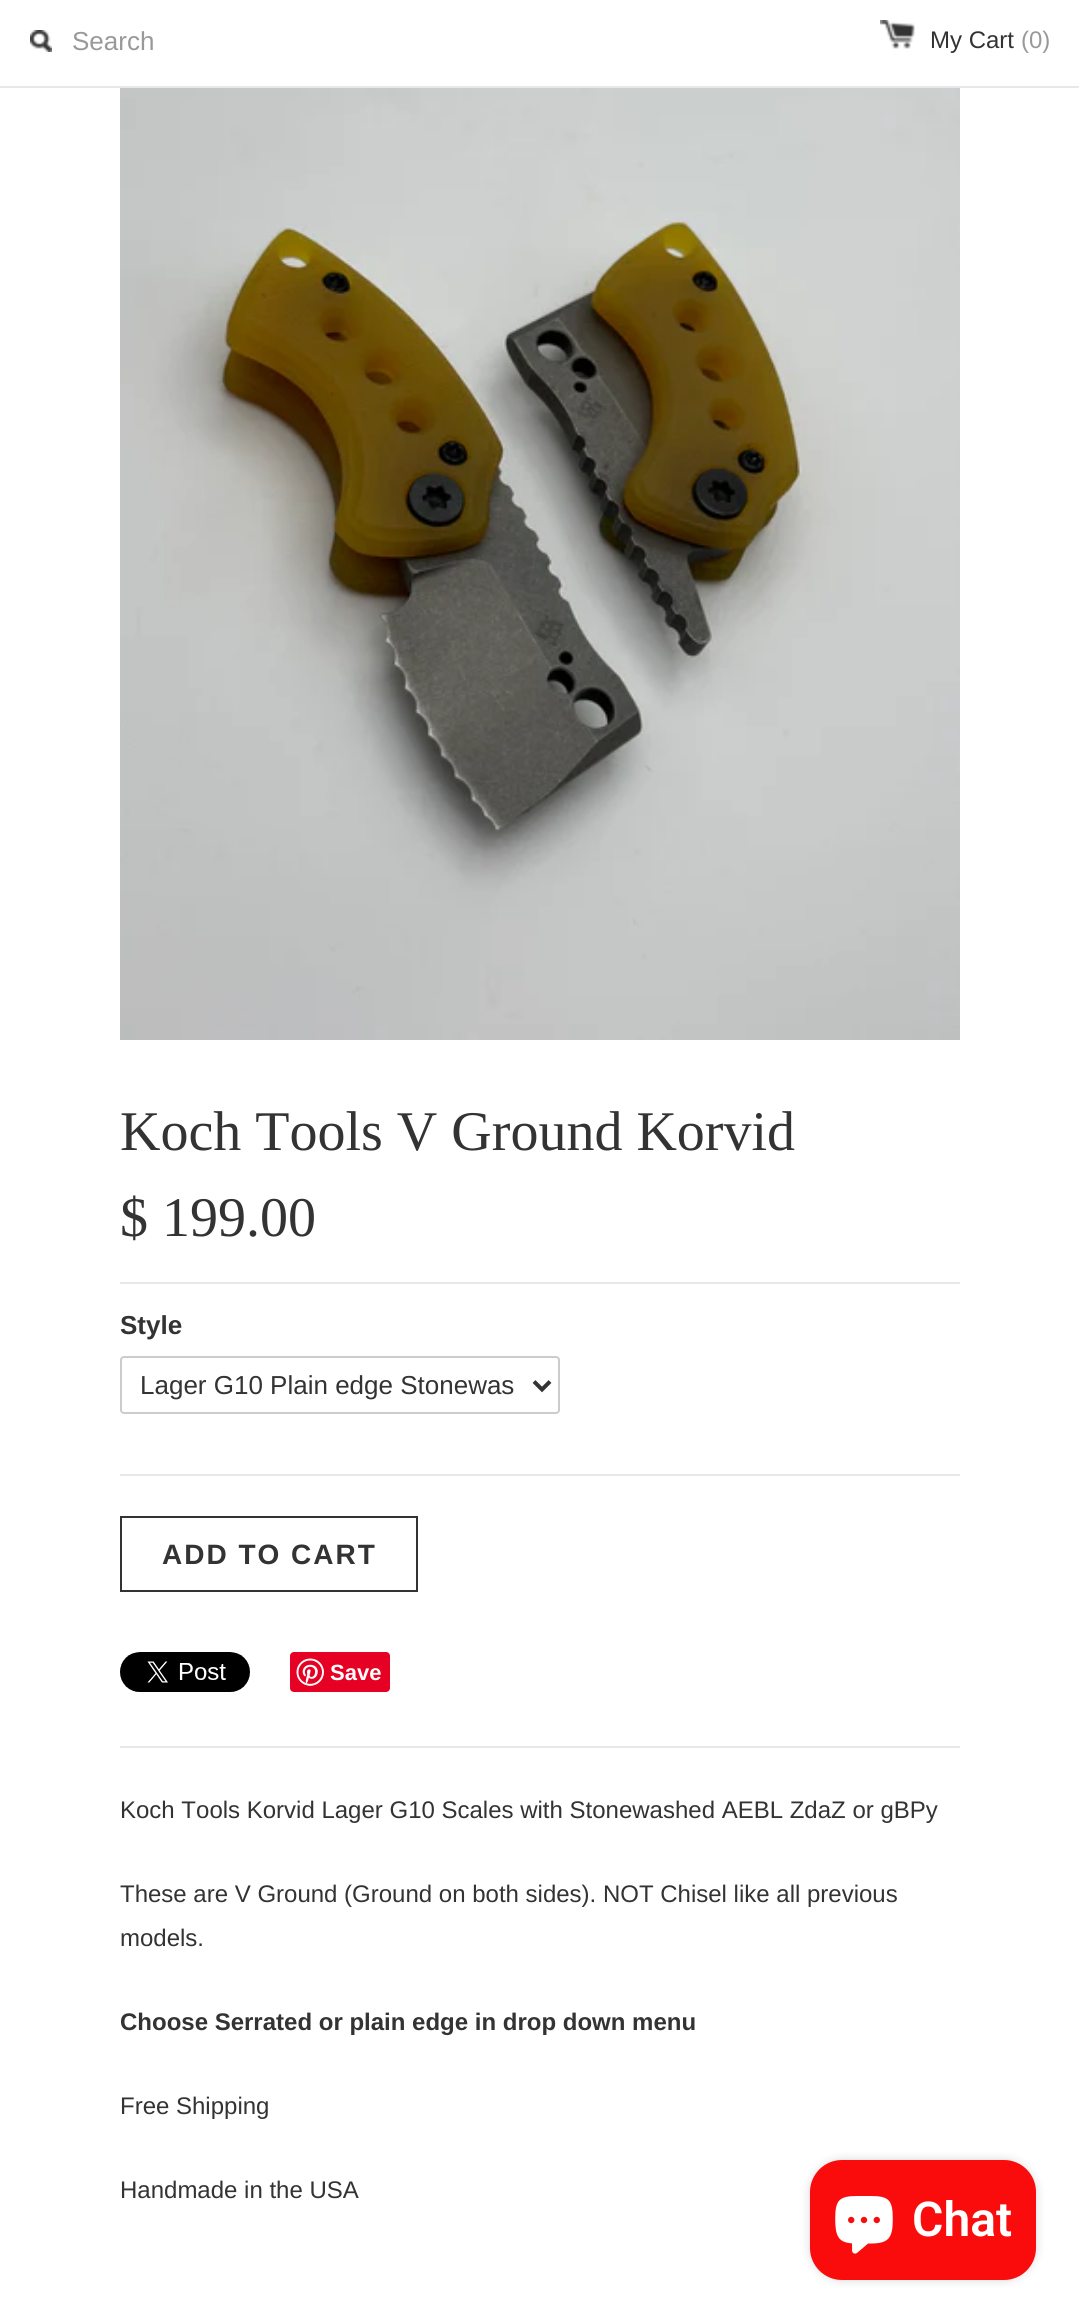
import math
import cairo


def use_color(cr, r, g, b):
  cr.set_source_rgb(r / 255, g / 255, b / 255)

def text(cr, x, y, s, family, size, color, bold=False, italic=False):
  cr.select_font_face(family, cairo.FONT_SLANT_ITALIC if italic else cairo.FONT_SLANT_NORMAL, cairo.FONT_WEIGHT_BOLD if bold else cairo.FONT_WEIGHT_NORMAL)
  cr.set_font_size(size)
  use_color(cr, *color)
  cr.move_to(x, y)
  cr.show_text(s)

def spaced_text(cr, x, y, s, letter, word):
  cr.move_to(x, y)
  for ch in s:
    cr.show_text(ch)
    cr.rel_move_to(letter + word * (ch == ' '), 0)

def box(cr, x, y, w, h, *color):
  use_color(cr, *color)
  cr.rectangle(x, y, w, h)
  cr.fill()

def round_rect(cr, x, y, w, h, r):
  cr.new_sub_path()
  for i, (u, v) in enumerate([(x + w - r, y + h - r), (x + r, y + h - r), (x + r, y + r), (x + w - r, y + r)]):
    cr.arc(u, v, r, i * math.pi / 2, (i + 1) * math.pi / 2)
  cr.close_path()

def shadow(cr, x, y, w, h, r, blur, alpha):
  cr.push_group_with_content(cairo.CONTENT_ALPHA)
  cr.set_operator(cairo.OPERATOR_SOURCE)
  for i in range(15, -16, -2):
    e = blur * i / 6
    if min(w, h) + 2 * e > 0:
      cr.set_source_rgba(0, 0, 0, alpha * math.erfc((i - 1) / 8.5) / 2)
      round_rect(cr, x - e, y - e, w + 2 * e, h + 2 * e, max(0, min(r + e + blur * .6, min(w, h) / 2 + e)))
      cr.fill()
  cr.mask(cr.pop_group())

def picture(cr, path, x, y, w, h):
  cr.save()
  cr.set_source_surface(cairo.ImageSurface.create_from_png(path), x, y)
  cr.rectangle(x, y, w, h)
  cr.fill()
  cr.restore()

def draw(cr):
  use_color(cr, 255, 255, 255)
  cr.paint()
  box(cr, 0, 86, 1079, 2, 232, 232, 232)
  picture(cr, "img_01.png", 30, 30, 22, 22)
  picture(cr, "img_02.png", 880, 20, 35, 29)
  picture(cr, "img_03.png", 120, 88, 840, 952)
  box(cr, 120, 1282, 840, 2, 232, 232, 232)
  box(cr, 120, 1474, 840, 2, 232, 232, 232)
  round_rect(cr, 121, 1357, 438, 56, 3)
  use_color(cr, 204, 204, 204)
  cr.stroke()
  cr.new_path()
  cr.move_to(534, 1381.5)
  cr.line_to(542, 1389.5)
  cr.line_to(550, 1381.5)
  use_color(cr, 51, 51, 51)
  cr.set_line_width(4)
  cr.stroke()
  cr.rectangle(121, 1517, 296, 74)
  cr.set_line_width(2)
  cr.stroke()
  picture(cr, "img_04.png", 120, 1652, 130, 40)
  use_color(cr, 230, 0, 35)
  round_rect(cr, 290, 1652, 100, 40, 4)
  cr.fill()
  picture(cr, "img_05.png", 296, 1658, 28, 28)
  box(cr, 120, 1746, 840, 2, 232, 232, 232)
  use_color(cr, 0, 0, 0)
  shadow(cr, 810, 2160, 226, 120, 32, 5, 0.15)
  use_color(cr, 250, 12, 12)
  round_rect(cr, 810, 2160, 226, 120, 32)
  cr.fill()
  picture(cr, "img_06.png", 835, 2196, 58, 58)
  text(cr, 72, 50, "Search", "Liberation Sans", 26, (153, 153, 153))
  text(cr, 930, 48, "My Cart", "Liberation Sans", 24, (51, 51, 51))
  text(cr, 1021, 48, "(0)", "Liberation Sans", 24, (153, 153, 153))
  text(cr, 120, 1150, "Koch Tools V Ground Korvid", "Liberation Serif", 56, (51, 51, 51))
  text(cr, 120, 1236, "$ 199.00", "Liberation Serif", 56, (51, 51, 51))
  text(cr, 120, 1334, "Style", "Liberation Sans", 26, (51, 51, 51), bold=True)
  text(cr, 140, 1394, "Lager G10 Plain edge Stonewas", "Liberation Sans", 26, (51, 51, 51))
  cr.select_font_face("Liberation Sans", cairo.FONT_SLANT_NORMAL, cairo.FONT_WEIGHT_BOLD)
  cr.set_font_size(28)
  spaced_text(cr, 162, 1564, "ADD TO CART", 2, 0)
  text(cr, 330, 1680, "Save", "Liberation Sans", 22, (255, 255, 255), bold=True)
  text(cr, 120, 1818, "Koch Tools Korvid Lager G10 Scales with Stonewashed AEBL ZdaZ or gBPy", "Liberation Sans", 24, (51, 51, 51))
  text(cr, 120, 1902, "These are V Ground (Ground on both sides). NOT Chisel like all previous", "Liberation Sans", 24, (51, 51, 51))
  text(cr, 120, 1946, "models.", "Liberation Sans", 24, (51, 51, 51))
  text(cr, 120, 2030, "Choose Serrated or plain edge in drop down menu", "Liberation Sans", 24, (51, 51, 51), bold=True)
  text(cr, 120, 2114, "Free Shipping", "Liberation Sans", 24, (51, 51, 51))
  text(cr, 120, 2198, "Handmade in the USA", "Liberation Sans", 24, (51, 51, 51))
  text(cr, 912, 2236, "Chat", "Roboto SemiBold", 48, (255, 255, 255))


surface = cairo.ImageSurface(cairo.FORMAT_RGB24, 1079, 2321)
cr = cairo.Context(surface)
options = cairo.FontOptions()
options.set_hint_metrics(cairo.HINT_METRICS_OFF)
options.set_hint_style(cairo.HINT_STYLE_NONE)
cr.set_font_options(options)
cr.set_miter_limit(4)
draw(cr)
surface.write_to_png("out.png")
